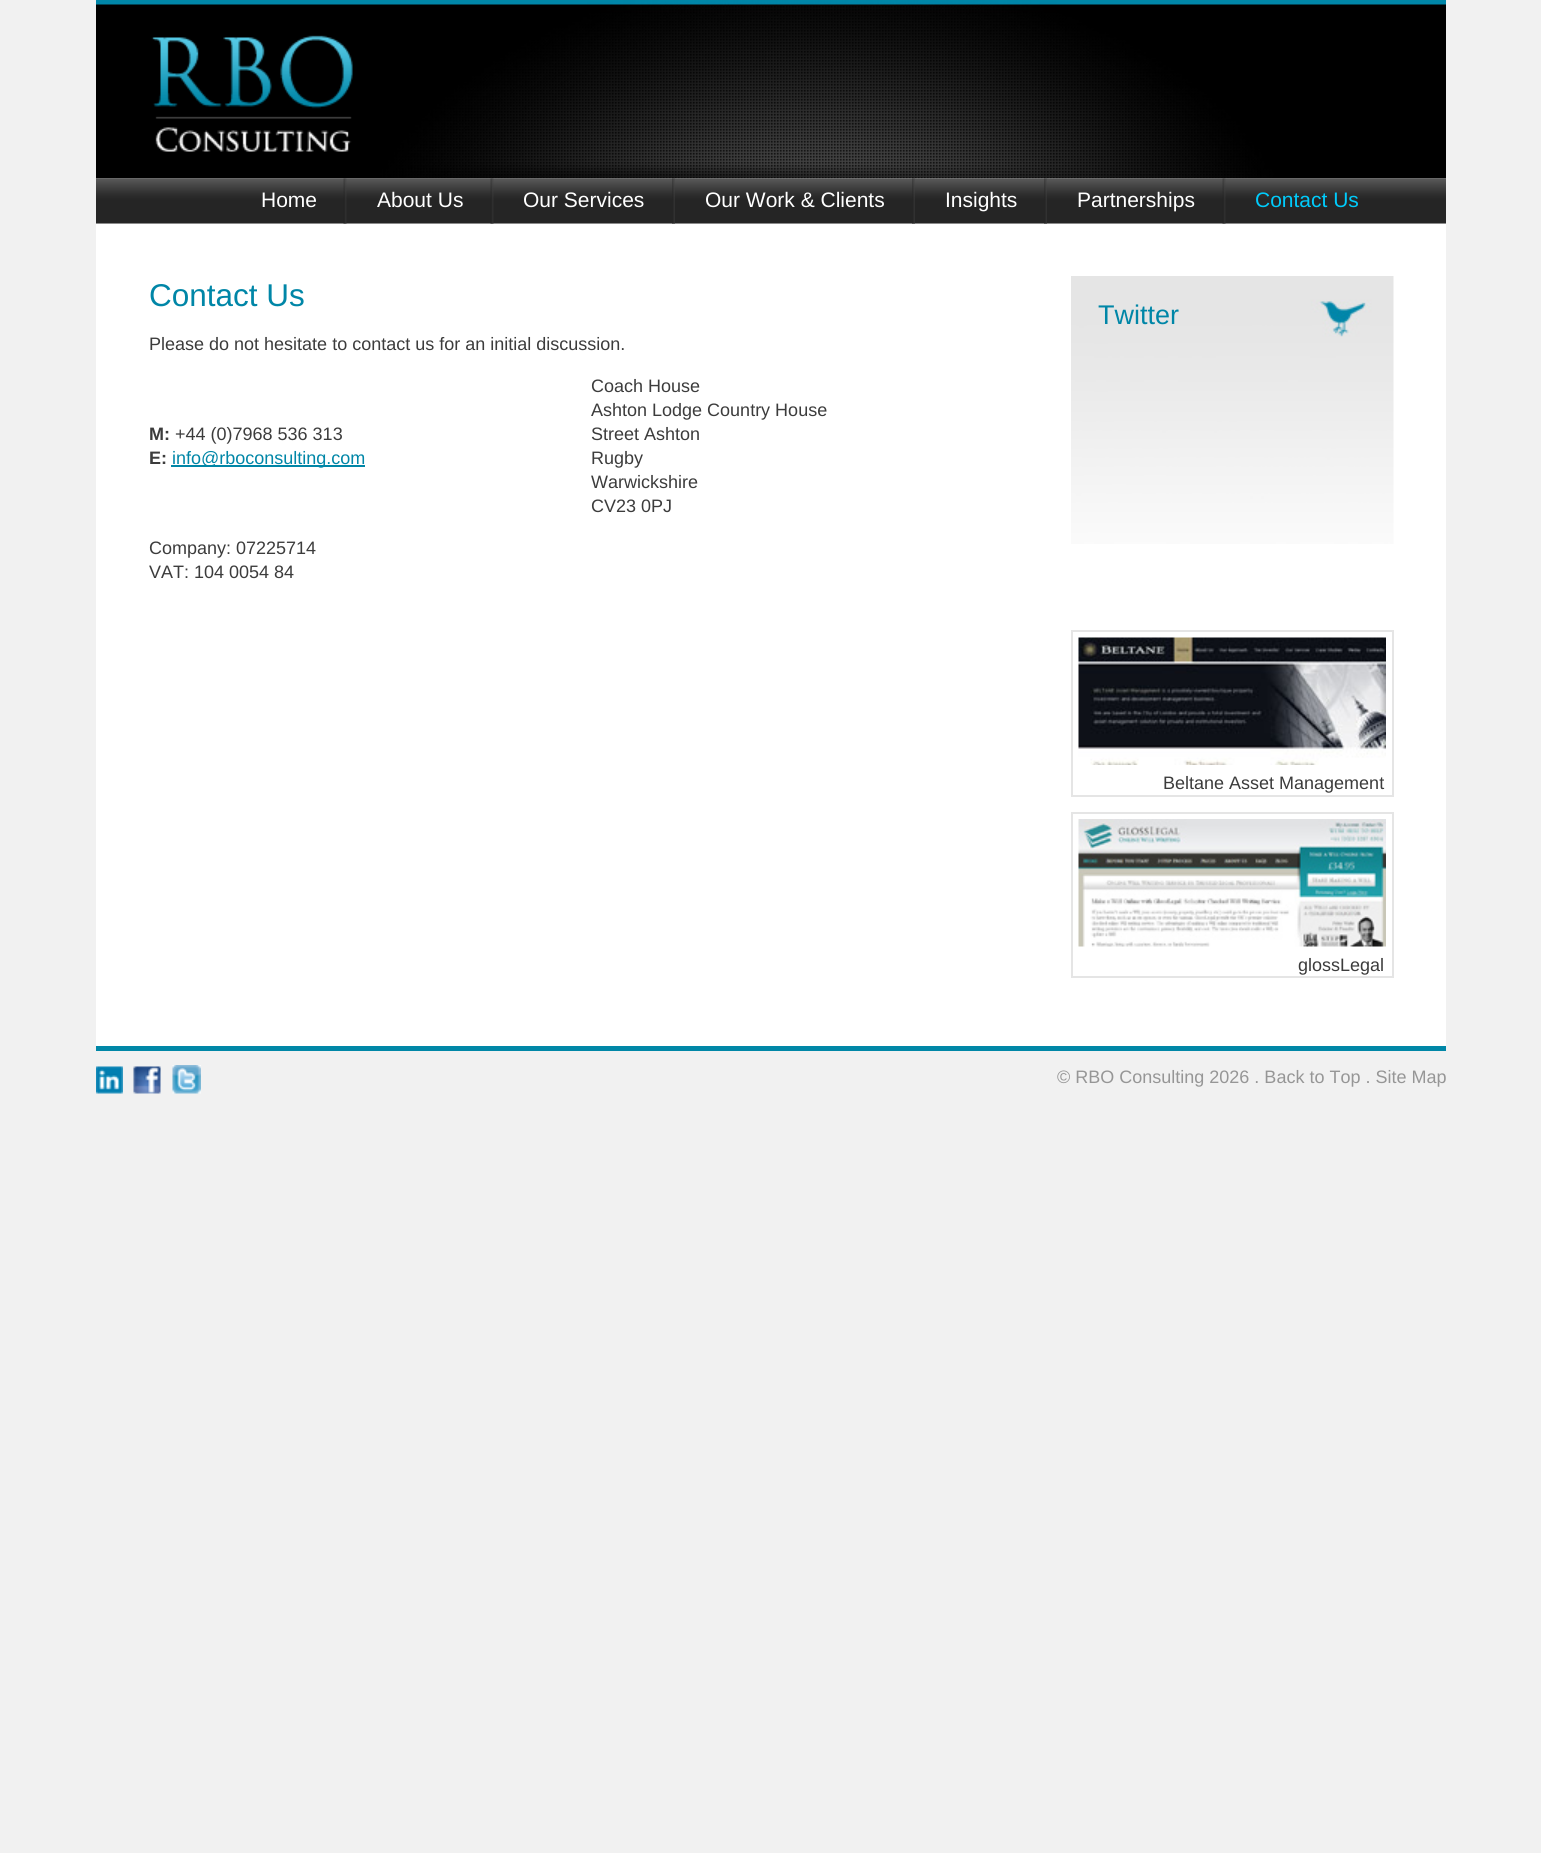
import math
import cairo


def use_color(cr, r, g, b):
  cr.set_source_rgb(r / 255, g / 255, b / 255)

def text(cr, x, y, s, family, size, color, bold=False, italic=False):
  cr.select_font_face(family, cairo.FONT_SLANT_ITALIC if italic else cairo.FONT_SLANT_NORMAL, cairo.FONT_WEIGHT_BOLD if bold else cairo.FONT_WEIGHT_NORMAL)
  cr.set_font_size(size)
  use_color(cr, *color)
  cr.move_to(x, y)
  cr.show_text(s)

def box(cr, x, y, w, h, *color):
  use_color(cr, *color)
  cr.rectangle(x, y, w, h)
  cr.fill()

def picture(cr, path, x, y, w, h):
  cr.save()
  cr.set_source_surface(cairo.ImageSurface.create_from_png(path), x, y)
  cr.rectangle(x, y, w, h)
  cr.fill()
  cr.restore()

def draw(cr):
  use_color(cr, 241, 241, 241)
  cr.paint()
  picture(cr, "img_01.png", 96, 0, 1350, 179)
  picture(cr, "img_02.png", 151, 35, 202, 117)
  picture(cr, "img_03.png", 96, 178, 1350, 46)
  picture(cr, "img_04.png", 343, 178, 4, 46)
  picture(cr, "img_05.png", 490, 178, 4, 46)
  picture(cr, "img_06.png", 672, 178, 3, 46)
  picture(cr, "img_07.png", 912, 178, 3, 46)
  picture(cr, "img_08.png", 1044, 178, 3, 46)
  picture(cr, "img_05.png", 1222, 178, 4, 46)
  box(cr, 96, 224, 1350, 822, 255, 255, 255)
  box(cr, 96, 1046, 1350, 5, 0, 135, 167)
  box(cr, 171, 465, 194, 2, 0, 134, 167)
  picture(cr, "img_09.png", 1071, 276, 323, 268)
  cr.rectangle(1072, 631, 321, 165)
  use_color(cr, 229, 229, 229)
  cr.stroke()
  picture(cr, "img_10.png", 1078, 637, 308, 128)
  cr.rectangle(1072, 813, 321, 164)
  cr.stroke()
  picture(cr, "img_11.png", 1078, 819, 308, 128)
  picture(cr, "img_12.png", 96, 1066, 27, 28)
  picture(cr, "img_13.png", 133, 1066, 28, 28)
  picture(cr, "img_14.png", 172, 1065, 29, 29)
  text(cr, 261, 207, "Home", "Liberation Sans", 21, (255, 255, 255))
  text(cr, 377, 207, "About Us", "Liberation Sans", 21, (255, 255, 255))
  text(cr, 523, 207, "Our Services", "Liberation Sans", 21, (255, 255, 255))
  text(cr, 705, 207, "Our Work & Clients", "Liberation Sans", 21, (255, 255, 255))
  text(cr, 945, 207, "Insights", "Liberation Sans", 21, (255, 255, 255))
  text(cr, 1077, 207, "Partnerships", "Liberation Sans", 21, (255, 255, 255))
  text(cr, 1255, 207, "Contact Us", "Liberation Sans", 21, (0, 203, 251))
  text(cr, 149, 306, "Contact Us", "Liberation Sans", 31.5, (0, 134, 167))
  text(cr, 149, 350, "Please do not hesitate to contact us for an initial discussion.", "Liberation Sans", 18, (60, 60, 60))
  text(cr, 149, 440, "M:", "Liberation Sans", 18, (60, 60, 60), bold=True)
  text(cr, 175, 440, "+44 (0)7968 536 313", "Liberation Sans", 18, (60, 60, 60))
  text(cr, 149, 464, "E:", "Liberation Sans", 18, (60, 60, 60), bold=True)
  text(cr, 172, 464, "info@rboconsulting.com", "Liberation Sans", 18, (0, 134, 167))
  text(cr, 591, 392, "Coach House", "Liberation Sans", 18, (60, 60, 60))
  text(cr, 591, 416, "Ashton Lodge Country House", "Liberation Sans", 18, (60, 60, 60))
  text(cr, 591, 440, "Street Ashton", "Liberation Sans", 18, (60, 60, 60))
  text(cr, 591, 464, "Rugby", "Liberation Sans", 18, (60, 60, 60))
  text(cr, 591, 488, "Warwickshire", "Liberation Sans", 18, (60, 60, 60))
  text(cr, 591, 512, "CV23 0PJ", "Liberation Sans", 18, (60, 60, 60))
  text(cr, 149, 554, "Company: 07225714", "Liberation Sans", 18, (60, 60, 60))
  text(cr, 149, 578, "VAT: 104 0054 84", "Liberation Sans", 18, (60, 60, 60))
  text(cr, 1098, 324, "Twitter", "Liberation Sans", 27, (0, 134, 167))
  text(cr, 1163, 789, "Beltane Asset Management", "Liberation Sans", 18, (60, 60, 60))
  text(cr, 1298, 971, "glossLegal", "Liberation Sans", 18, (60, 60, 60))
  text(cr, 1057, 1083, "© RBO Consulting 2026 . Back to Top . Site Map", "Liberation Sans", 18, (150, 150, 150))


surface = cairo.ImageSurface(cairo.FORMAT_RGB24, 1541, 1853)
cr = cairo.Context(surface)
options = cairo.FontOptions()
options.set_hint_metrics(cairo.HINT_METRICS_OFF)
options.set_hint_style(cairo.HINT_STYLE_NONE)
cr.set_font_options(options)
cr.set_miter_limit(4)
draw(cr)
surface.write_to_png("out.png")
